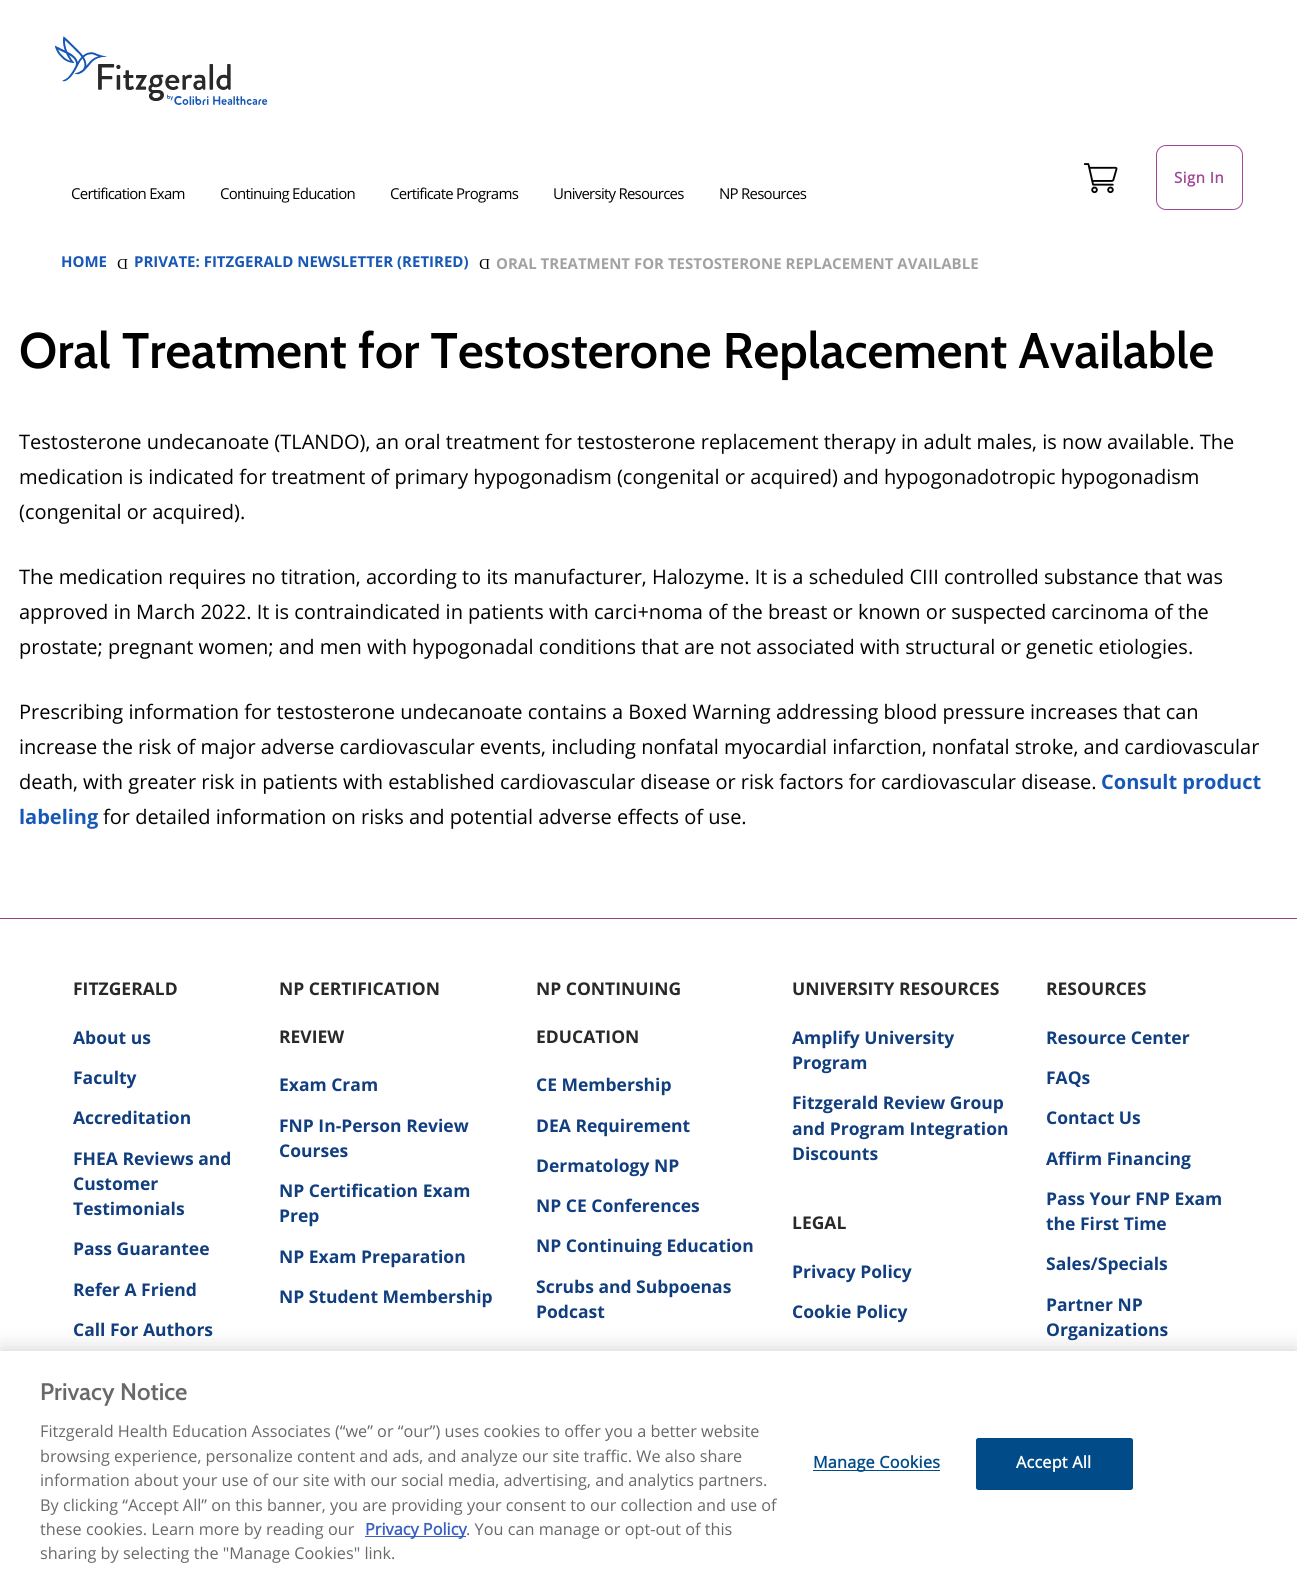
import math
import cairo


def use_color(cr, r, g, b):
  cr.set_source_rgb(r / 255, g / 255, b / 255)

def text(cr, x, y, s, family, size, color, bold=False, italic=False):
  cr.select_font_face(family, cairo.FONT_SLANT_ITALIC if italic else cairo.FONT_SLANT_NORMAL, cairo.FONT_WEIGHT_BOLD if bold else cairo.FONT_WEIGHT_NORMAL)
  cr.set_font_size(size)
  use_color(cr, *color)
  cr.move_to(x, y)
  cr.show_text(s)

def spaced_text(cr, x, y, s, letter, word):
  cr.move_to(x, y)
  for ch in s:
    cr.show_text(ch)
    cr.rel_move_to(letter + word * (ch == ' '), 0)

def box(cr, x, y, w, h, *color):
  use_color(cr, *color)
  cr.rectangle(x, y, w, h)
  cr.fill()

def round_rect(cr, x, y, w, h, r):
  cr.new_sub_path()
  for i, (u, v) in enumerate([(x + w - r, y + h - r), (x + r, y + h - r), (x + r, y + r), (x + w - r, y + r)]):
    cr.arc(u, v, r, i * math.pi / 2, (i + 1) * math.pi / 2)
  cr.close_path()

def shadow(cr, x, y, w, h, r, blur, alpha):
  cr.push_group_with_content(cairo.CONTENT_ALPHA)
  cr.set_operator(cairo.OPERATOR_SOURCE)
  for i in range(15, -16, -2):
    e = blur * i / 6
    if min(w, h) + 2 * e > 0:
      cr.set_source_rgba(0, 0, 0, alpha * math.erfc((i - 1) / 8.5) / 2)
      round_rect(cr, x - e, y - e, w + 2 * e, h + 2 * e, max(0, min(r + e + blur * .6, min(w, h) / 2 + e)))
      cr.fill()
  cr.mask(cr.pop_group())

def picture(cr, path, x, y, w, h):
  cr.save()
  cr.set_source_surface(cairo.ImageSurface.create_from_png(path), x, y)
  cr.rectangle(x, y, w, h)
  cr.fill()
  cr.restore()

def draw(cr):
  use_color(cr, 255, 255, 255)
  cr.paint()
  picture(cr, "img_01.png", 55, 36, 213, 69)
  picture(cr, "img_02.png", 1084, 163, 34, 31)
  round_rect(cr, 1156.5, 145.5, 86, 64, 9.5)
  use_color(cr, 162, 71, 150)
  cr.set_line_width(1)
  cr.stroke()
  box(cr, 0, 918, 1297, 1, 146, 64, 135)
  use_color(cr, 0, 0, 0)
  shadow(cr, 0, 1351, 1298, 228, 0, 11, 0.2)
  box(cr, 0, 1351, 1297, 227, 255, 255, 255)
  box(cr, 365, 1536, 101, 1, 56, 96, 190)
  box(cr, 813, 1470, 127, 1, 1, 75, 136)
  round_rect(cr, 976.5, 1438.5, 156, 51, 2)
  cr.fill_preserve()
  cr.stroke()
  cr.select_font_face("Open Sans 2", cairo.FONT_SLANT_NORMAL, cairo.FONT_WEIGHT_BOLD)
  cr.set_font_size(15)
  use_color(cr, 162, 71, 150)
  spaced_text(cr, 1174, 183, "Sign In", 0.5, 0)
  cr.select_font_face("Open Sans")
  use_color(cr, 0, 0, 0)
  spaced_text(cr, 71, 199, "Certification Exam", -0.75, 0)
  spaced_text(cr, 220, 199, "Continuing Education", -0.75, 0)
  spaced_text(cr, 390, 199, "Certificate Programs", -0.75, 0)
  spaced_text(cr, 553, 199, "University Resources", -0.75, 0)
  spaced_text(cr, 719, 199, "NP Resources", -0.75, 0)
  text(cr, 61, 267, "HOME", "Open Sans", 15, (23, 88, 182), bold=True)
  cr.save()
  cr.translate(128, 259)
  cr.rotate(180 * math.pi / 180)
  text(cr, 0, 0, "D", "Liberation Serif", 15, (0, 0, 0))
  cr.restore()
  text(cr, 134, 267, "PRIVATE: FITZGERALD NEWSLETTER (RETIRED)", "Open Sans", 15, (23, 88, 182), bold=True)
  cr.save()
  cr.translate(490, 259)
  cr.rotate(180 * math.pi / 180)
  text(cr, 0, 0, "D", "Liberation Serif", 15, (0, 0, 0))
  cr.restore()
  text(cr, 496, 269, "ORAL TREATMENT FOR TESTOSTERONE REPLACEMENT AVAILABLE", "Open Sans", 15, (162, 162, 162), bold=True)
  text(cr, 19, 368, "Oral Treatment for Testosterone Replacement Available", "Cabin SemiBold", 50, (0, 0, 0))
  text(cr, 19, 449, "Testosterone undecanoate (TLANDO), an oral treatment for testosterone replacement therapy in adult males, is now available. The", "Open Sans", 20, (0, 0, 0))
  text(cr, 19, 484, "medication is indicated for treatment of primary hypogonadism (congenital or acquired) and hypogonadotropic hypogonadism", "Open Sans", 20, (0, 0, 0))
  text(cr, 19, 519, "(congenital or acquired).", "Open Sans", 20, (0, 0, 0))
  text(cr, 19, 584, "The medication requires no titration, according to its manufacturer, Halozyme. It is a scheduled CIII controlled substance that was", "Open Sans", 20, (0, 0, 0))
  text(cr, 19, 619, "approved in March 2022. It is contraindicated in patients with carci+noma of the breast or known or suspected carcinoma of the", "Open Sans", 20, (0, 0, 0))
  text(cr, 19, 654, "prostate; pregnant women; and men with hypogonadal conditions that are not associated with structural or genetic etiologies.", "Open Sans", 20, (0, 0, 0))
  text(cr, 19, 719, "Prescribing information for testosterone undecanoate contains a Boxed Warning addressing blood pressure increases that can", "Open Sans", 20, (0, 0, 0))
  text(cr, 19, 754, "increase the risk of major adverse cardiovascular events, including nonfatal myocardial infarction, nonfatal stroke, and cardiovascular", "Open Sans", 20, (0, 0, 0))
  text(cr, 19, 789, "death, with greater risk in patients with established cardiovascular disease or risk factors for cardiovascular disease.", "Open Sans", 20, (0, 0, 0))
  text(cr, 1101, 789, "Consult product", "Open Sans", 20, (23, 88, 182), bold=True)
  text(cr, 19, 824, "labeling", "Open Sans", 20, (23, 88, 182), bold=True)
  text(cr, 103, 824, "for detailed information on risks and potential adverse effects of use.", "Open Sans", 20, (0, 0, 0))
  text(cr, 73, 995, "FITZGERALD", "Open Sans", 17.5, (41, 41, 41), bold=True)
  text(cr, 73, 1044, "About us", "Open Sans", 17.5, (16, 62, 127), bold=True)
  text(cr, 73, 1084, "Faculty", "Open Sans", 17.5, (16, 62, 127), bold=True)
  text(cr, 73, 1124, "Accreditation", "Open Sans", 17.5, (16, 62, 127), bold=True)
  text(cr, 73, 1165, "FHEA Reviews and", "Open Sans", 17.5, (16, 62, 127), bold=True)
  text(cr, 73, 1190, "Customer", "Open Sans", 17.5, (16, 62, 127), bold=True)
  text(cr, 73, 1215, "Testimonials", "Open Sans", 17.5, (16, 62, 127), bold=True)
  text(cr, 73, 1255, "Pass Guarantee", "Open Sans", 17.5, (16, 62, 127), bold=True)
  text(cr, 73, 1296, "Refer A Friend", "Open Sans", 17.5, (16, 62, 127), bold=True)
  text(cr, 73, 1336, "Call For Authors", "Open Sans", 17.5, (16, 62, 127), bold=True)
  text(cr, 279, 995, "NP CERTIFICATION", "Open Sans", 17.5, (41, 41, 41), bold=True)
  text(cr, 279, 1043, "REVIEW", "Open Sans", 17.5, (41, 41, 41), bold=True)
  text(cr, 279, 1091, "Exam Cram", "Open Sans", 17.5, (16, 62, 127), bold=True)
  text(cr, 279, 1132, "FNP In-Person Review", "Open Sans", 17.5, (16, 62, 127), bold=True)
  text(cr, 279, 1157, "Courses", "Open Sans", 17.5, (16, 62, 127), bold=True)
  text(cr, 279, 1197, "NP Certification Exam", "Open Sans", 17.5, (16, 62, 127), bold=True)
  text(cr, 279, 1222, "Prep", "Open Sans", 17.5, (16, 62, 127), bold=True)
  text(cr, 279, 1263, "NP Exam Preparation", "Open Sans", 17.5, (16, 62, 127), bold=True)
  text(cr, 279, 1303, "NP Student Membership", "Open Sans", 17.5, (16, 62, 127), bold=True)
  text(cr, 536, 995, "NP CONTINUING", "Open Sans", 17.5, (41, 41, 41), bold=True)
  text(cr, 536, 1043, "EDUCATION", "Open Sans", 17.5, (41, 41, 41), bold=True)
  text(cr, 536, 1091, "CE Membership", "Open Sans", 17.5, (16, 62, 127), bold=True)
  text(cr, 536, 1132, "DEA Requirement", "Open Sans", 17.5, (16, 62, 127), bold=True)
  text(cr, 536, 1172, "Dermatology NP", "Open Sans", 17.5, (16, 62, 127), bold=True)
  text(cr, 536, 1212, "NP CE Conferences", "Open Sans", 17.5, (16, 62, 127), bold=True)
  text(cr, 536, 1252, "NP Continuing Education", "Open Sans", 17.5, (16, 62, 127), bold=True)
  text(cr, 536, 1293, "Scrubs and Subpoenas", "Open Sans", 17.5, (16, 62, 127), bold=True)
  text(cr, 536, 1318, "Podcast", "Open Sans", 17.5, (16, 62, 127), bold=True)
  text(cr, 792, 995, "UNIVERSITY RESOURCES", "Open Sans", 17.5, (41, 41, 41), bold=True)
  text(cr, 792, 1044, "Amplify University", "Open Sans", 17.5, (16, 62, 127), bold=True)
  text(cr, 792, 1069, "Program", "Open Sans", 17.5, (16, 62, 127), bold=True)
  text(cr, 792, 1109, "Fitzgerald Review Group", "Open Sans", 17.5, (16, 62, 127), bold=True)
  text(cr, 792, 1135, "and Program Integration", "Open Sans", 17.5, (16, 62, 127), bold=True)
  text(cr, 792, 1160, "Discounts", "Open Sans", 17.5, (16, 62, 127), bold=True)
  text(cr, 792, 1229, "LEGAL", "Open Sans", 17.5, (41, 41, 41), bold=True)
  text(cr, 792, 1278, "Privacy Policy", "Open Sans", 17.5, (16, 62, 127), bold=True)
  text(cr, 792, 1318, "Cookie Policy", "Open Sans", 17.5, (16, 62, 127), bold=True)
  text(cr, 1046, 995, "RESOURCES", "Open Sans", 17.5, (41, 41, 41), bold=True)
  text(cr, 1046, 1044, "Resource Center", "Open Sans", 17.5, (16, 62, 127), bold=True)
  text(cr, 1046, 1084, "FAQs", "Open Sans", 17.5, (16, 62, 127), bold=True)
  text(cr, 1046, 1124, "Contact Us", "Open Sans", 17.5, (16, 62, 127), bold=True)
  text(cr, 1046, 1165, "Affirm Financing", "Open Sans", 17.5, (16, 62, 127), bold=True)
  text(cr, 1046, 1205, "Pass Your FNP Exam", "Open Sans", 17.5, (16, 62, 127), bold=True)
  text(cr, 1046, 1230, "the First Time", "Open Sans", 17.5, (16, 62, 127), bold=True)
  text(cr, 1046, 1270, "Sales/Specials", "Open Sans", 17.5, (16, 62, 127), bold=True)
  text(cr, 1046, 1311, "Partner NP", "Open Sans", 17.5, (16, 62, 127), bold=True)
  text(cr, 1046, 1336, "Organizations", "Open Sans", 17.5, (16, 62, 127), bold=True)
  text(cr, 40, 1400, "Privacy Notice", "Cabin SemiBold", 24, (105, 105, 105))
  text(cr, 40, 1437, "Fitzgerald Health Education Associates (“we” or “our”) uses cookies to offer you a better website", "Open Sans", 16.25, (105, 105, 105))
  text(cr, 40, 1462, "browsing experience, personalize content and ads, and analyze our site traffic. We also share", "Open Sans", 16.25, (105, 105, 105))
  text(cr, 40, 1486, "information about your use of our site with our social media, advertising, and analytics partners.", "Open Sans", 16.25, (105, 105, 105))
  text(cr, 40, 1511, "By clicking “Accept All” on this banner, you are providing your consent to our collection and use of", "Open Sans", 16.25, (105, 105, 105))
  text(cr, 40, 1535, "these cookies. Learn more by reading our", "Open Sans", 16.25, (105, 105, 105))
  text(cr, 365, 1535, "Privacy Policy", "Open Sans 2", 16.25, (56, 96, 190), bold=True)
  text(cr, 466, 1535, ". You can manage or opt-out of this", "Open Sans", 16.25, (105, 105, 105))
  text(cr, 40, 1559, "sharing by selecting the \"Manage Cookies\" link.", "Open Sans", 16.25, (105, 105, 105))
  cr.select_font_face("Open Sans 2", cairo.FONT_SLANT_NORMAL, cairo.FONT_WEIGHT_BOLD)
  use_color(cr, 1, 75, 136)
  spaced_text(cr, 813, 1468, "Manage Cookies", 0.2, 0)
  use_color(cr, 255, 255, 255)
  spaced_text(cr, 1016, 1468, "Accept All", 0.2, 0)


surface = cairo.ImageSurface(cairo.FORMAT_RGB24, 1297, 1578)
cr = cairo.Context(surface)
options = cairo.FontOptions()
options.set_hint_metrics(cairo.HINT_METRICS_OFF)
options.set_hint_style(cairo.HINT_STYLE_NONE)
cr.set_font_options(options)
cr.set_miter_limit(4)
draw(cr)
surface.write_to_png("out.png")
